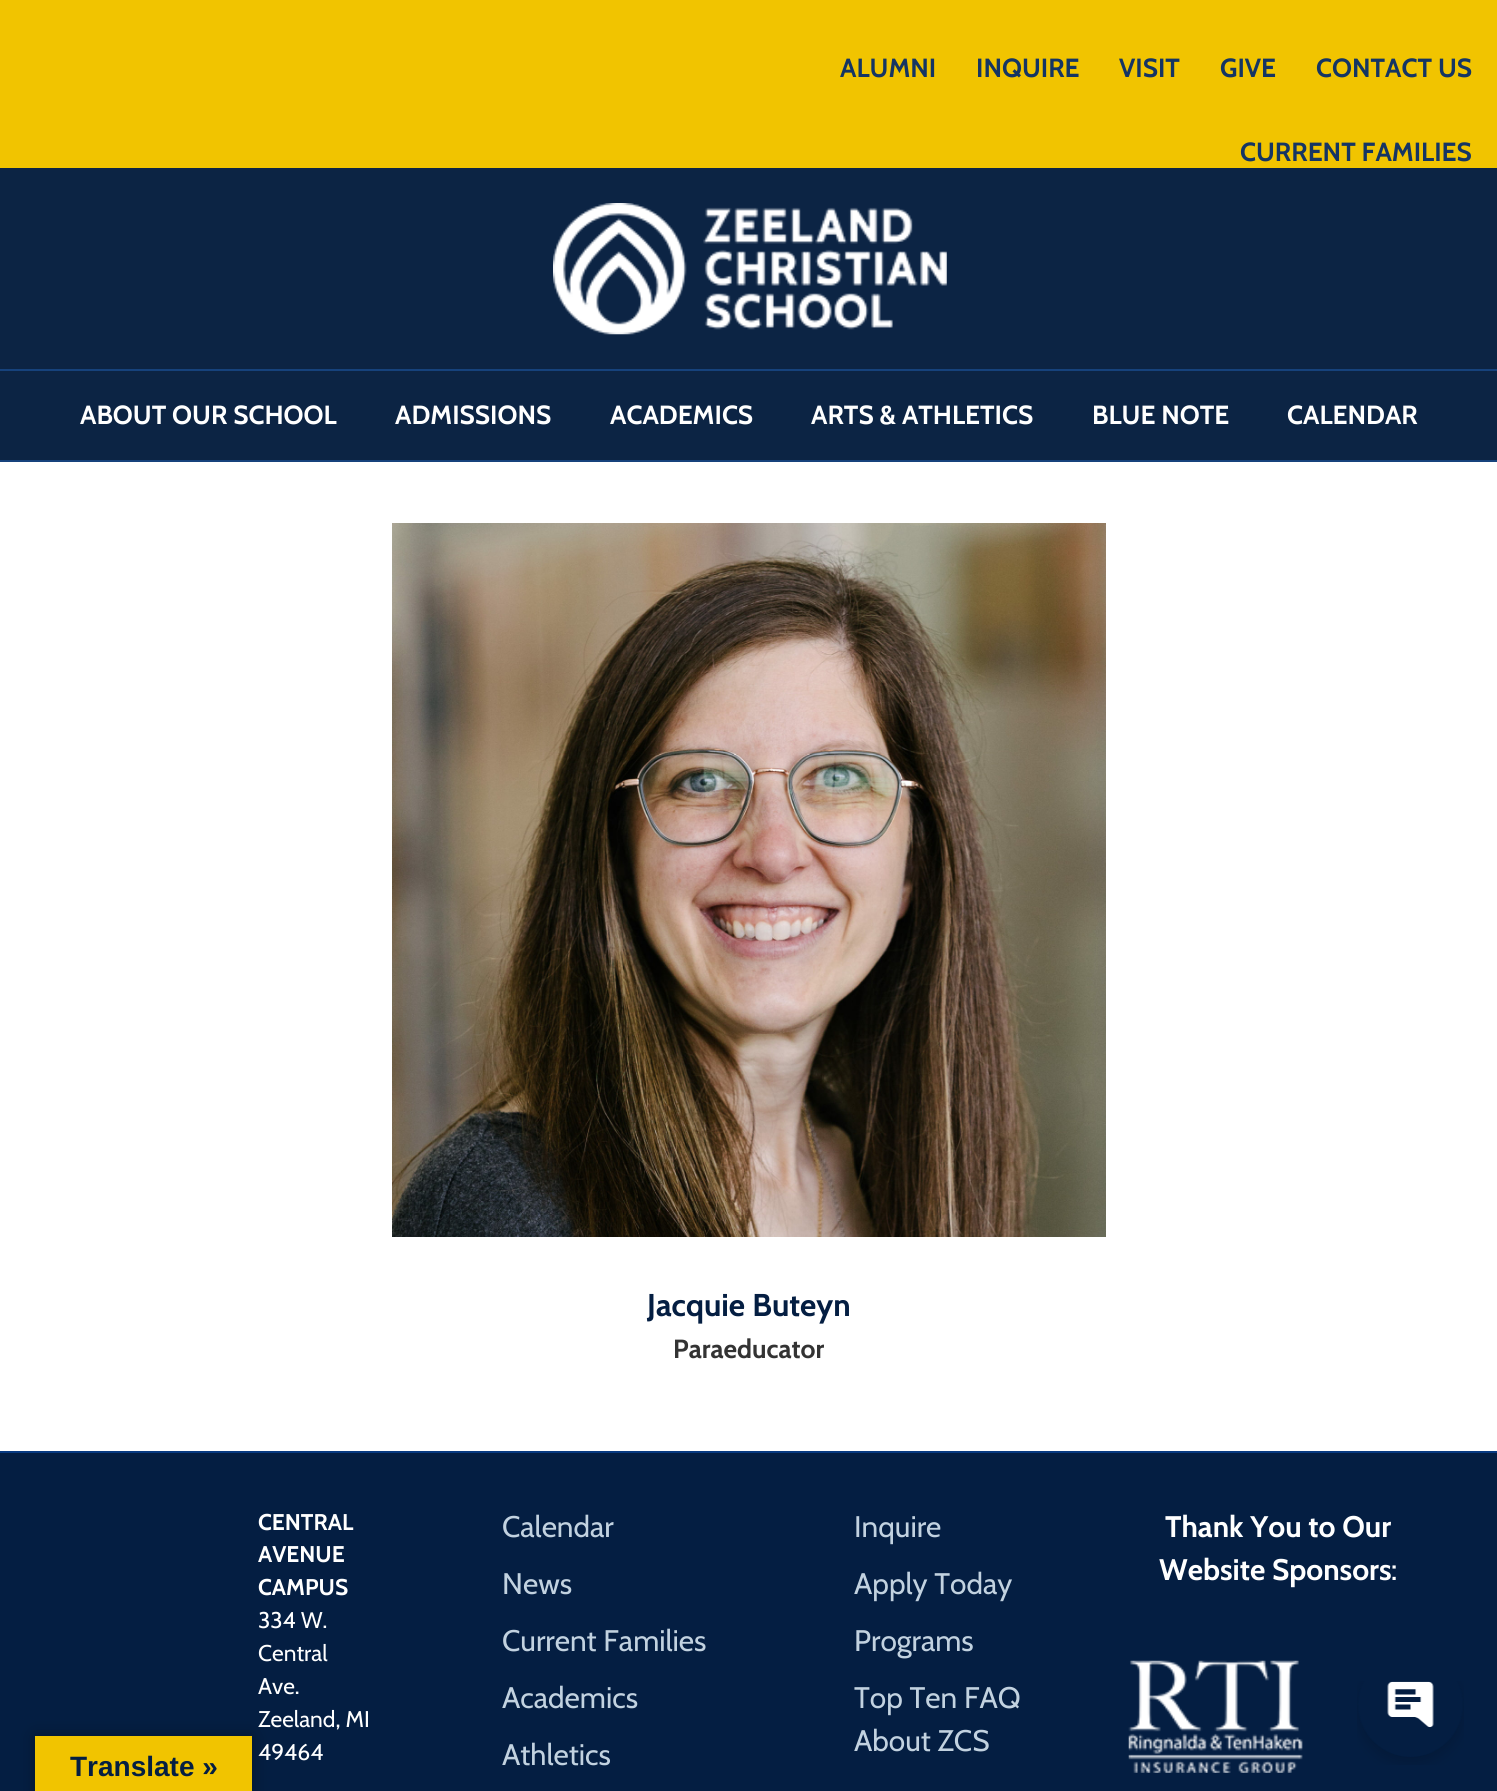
import math
import cairo


def use_color(cr, r, g, b):
  cr.set_source_rgb(r / 255, g / 255, b / 255)

def text(cr, x, y, s, family, size, color, bold=False, italic=False):
  cr.select_font_face(family, cairo.FONT_SLANT_ITALIC if italic else cairo.FONT_SLANT_NORMAL, cairo.FONT_WEIGHT_BOLD if bold else cairo.FONT_WEIGHT_NORMAL)
  cr.set_font_size(size)
  use_color(cr, *color)
  cr.move_to(x, y)
  cr.show_text(s)

def box(cr, x, y, w, h, *color):
  use_color(cr, *color)
  cr.rectangle(x, y, w, h)
  cr.fill()

def round_rect(cr, x, y, w, h, r):
  cr.new_sub_path()
  for i, (u, v) in enumerate([(x + w - r, y + h - r), (x + r, y + h - r), (x + r, y + r), (x + w - r, y + r)]):
    cr.arc(u, v, r, i * math.pi / 2, (i + 1) * math.pi / 2)
  cr.close_path()

def shadow(cr, x, y, w, h, r, blur, alpha):
  cr.push_group_with_content(cairo.CONTENT_ALPHA)
  cr.set_operator(cairo.OPERATOR_SOURCE)
  for i in range(15, -16, -2):
    e = blur * i / 6
    if min(w, h) + 2 * e > 0:
      cr.set_source_rgba(0, 0, 0, alpha * math.erfc((i - 1) / 8.5) / 2)
      round_rect(cr, x - e, y - e, w + 2 * e, h + 2 * e, max(0, min(r + e + blur * .6, min(w, h) / 2 + e)))
      cr.fill()
  cr.mask(cr.pop_group())

def picture(cr, path, x, y, w, h):
  cr.save()
  cr.set_source_surface(cairo.ImageSurface.create_from_png(path), x, y)
  cr.rectangle(x, y, w, h)
  cr.fill()
  cr.restore()

def draw(cr):
  use_color(cr, 241, 196, 0)
  cr.paint()
  box(cr, 0, 168, 1497, 292, 12, 36, 68)
  picture(cr, "img_01.png", 553, 203, 394, 132)
  box(cr, 0, 369, 1497, 2, 22, 66, 124)
  box(cr, 0, 460, 1497, 2, 22, 66, 124)
  box(cr, 0, 462, 1497, 989, 255, 255, 255)
  picture(cr, "img_02.png", 392, 523, 714, 714)
  box(cr, 0, 1453, 1497, 338, 4, 30, 66)
  box(cr, 0, 1451, 1497, 2, 8, 58, 129)
  picture(cr, "img_03.png", 1128, 1660, 175, 113)
  use_color(cr, 0, 0, 0)
  shadow(cr, 35, 1736, 217, 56, 0, 8, 0.3)
  box(cr, 35, 1736, 217, 55, 241, 196, 0)
  picture(cr, "img_04.png", 1357, 1681, 107, 84)
  text(cr, 840, 77, "ALUMNI", "Cabin", 26.25, (21, 53, 99), bold=True)
  text(cr, 976, 77, "INQUIRE", "Cabin", 26.25, (21, 53, 99), bold=True)
  text(cr, 1119, 77, "VISIT", "Cabin", 26.25, (21, 53, 99), bold=True)
  text(cr, 1220, 77, "GIVE", "Cabin", 26.25, (21, 53, 99), bold=True)
  text(cr, 1316, 77, "CONTACT US", "Cabin", 26.25, (21, 53, 99), bold=True)
  text(cr, 1240, 161, "CURRENT FAMILIES", "Cabin", 26.25, (21, 53, 99), bold=True)
  text(cr, 80, 424, "ABOUT OUR SCHOOL", "Cabin", 26.25, (255, 255, 255), bold=True)
  text(cr, 395, 424, "ADMISSIONS", "Cabin", 26.25, (255, 255, 255), bold=True)
  text(cr, 610, 424, "ACADEMICS", "Cabin", 26.25, (255, 255, 255), bold=True)
  text(cr, 811, 424, "ARTS & ATHLETICS", "Cabin", 26.25, (255, 255, 255), bold=True)
  text(cr, 1092, 424, "BLUE NOTE", "Cabin", 26.25, (255, 255, 255), bold=True)
  text(cr, 1287, 424, "CALENDAR", "Cabin", 26.25, (255, 255, 255), bold=True)
  text(cr, 647, 1316, "Jacquie Buteyn", "Cabin", 31.5, (4, 30, 66), bold=True)
  text(cr, 673, 1358, "Paraeducator", "Cabin", 26.25, (51, 51, 51), bold=True)
  text(cr, 258, 1530, "CENTRAL", "Cabin", 22.75, (255, 255, 255), bold=True)
  text(cr, 258, 1562, "AVENUE", "Cabin", 22.75, (255, 255, 255), bold=True)
  text(cr, 258, 1595, "CAMPUS", "Cabin", 22.75, (255, 255, 255), bold=True)
  text(cr, 258, 1628, "334 W.", "Cabin", 22.75, (255, 255, 255))
  text(cr, 258, 1661, "Central", "Cabin", 22.75, (255, 255, 255))
  text(cr, 258, 1694, "Ave.", "Cabin", 22.75, (255, 255, 255))
  text(cr, 258, 1727, "Zeeland, MI", "Cabin", 22.75, (255, 255, 255))
  text(cr, 258, 1760, "49464", "Cabin", 22.75, (255, 255, 255))
  text(cr, 502, 1537, "Calendar", "Cabin", 29.75, (194, 210, 224))
  text(cr, 502, 1594, "News", "Cabin", 29.75, (194, 210, 224))
  text(cr, 502, 1651, "Current Families", "Cabin", 29.75, (194, 210, 224))
  text(cr, 502, 1708, "Academics", "Cabin", 29.75, (194, 210, 224))
  text(cr, 502, 1765, "Athletics", "Cabin", 29.75, (194, 210, 224))
  text(cr, 854, 1537, "Inquire", "Cabin", 29.75, (194, 210, 224))
  text(cr, 854, 1594, "Apply Today", "Cabin", 29.75, (194, 210, 224))
  text(cr, 854, 1651, "Programs", "Cabin", 29.75, (194, 210, 224))
  text(cr, 854, 1708, "Top Ten FAQ", "Cabin", 29.75, (194, 210, 224))
  text(cr, 854, 1751, "About ZCS", "Cabin", 29.75, (194, 210, 224))
  text(cr, 1165, 1537, "Thank You to Our", "Cabin", 29.75, (255, 255, 255), bold=True)
  text(cr, 1159, 1580, "Website Sponsors", "Cabin", 29.75, (255, 255, 255), bold=True)
  text(cr, 1391, 1580, ":", "Cabin", 29.75, (255, 255, 255))
  text(cr, 70, 1776, "Translate »", "Liberation Sans", 28, (4, 30, 66), bold=True)


surface = cairo.ImageSurface(cairo.FORMAT_RGB24, 1497, 1791)
cr = cairo.Context(surface)
options = cairo.FontOptions()
options.set_hint_metrics(cairo.HINT_METRICS_OFF)
options.set_hint_style(cairo.HINT_STYLE_NONE)
cr.set_font_options(options)
cr.set_miter_limit(4)
draw(cr)
surface.write_to_png("out.png")
